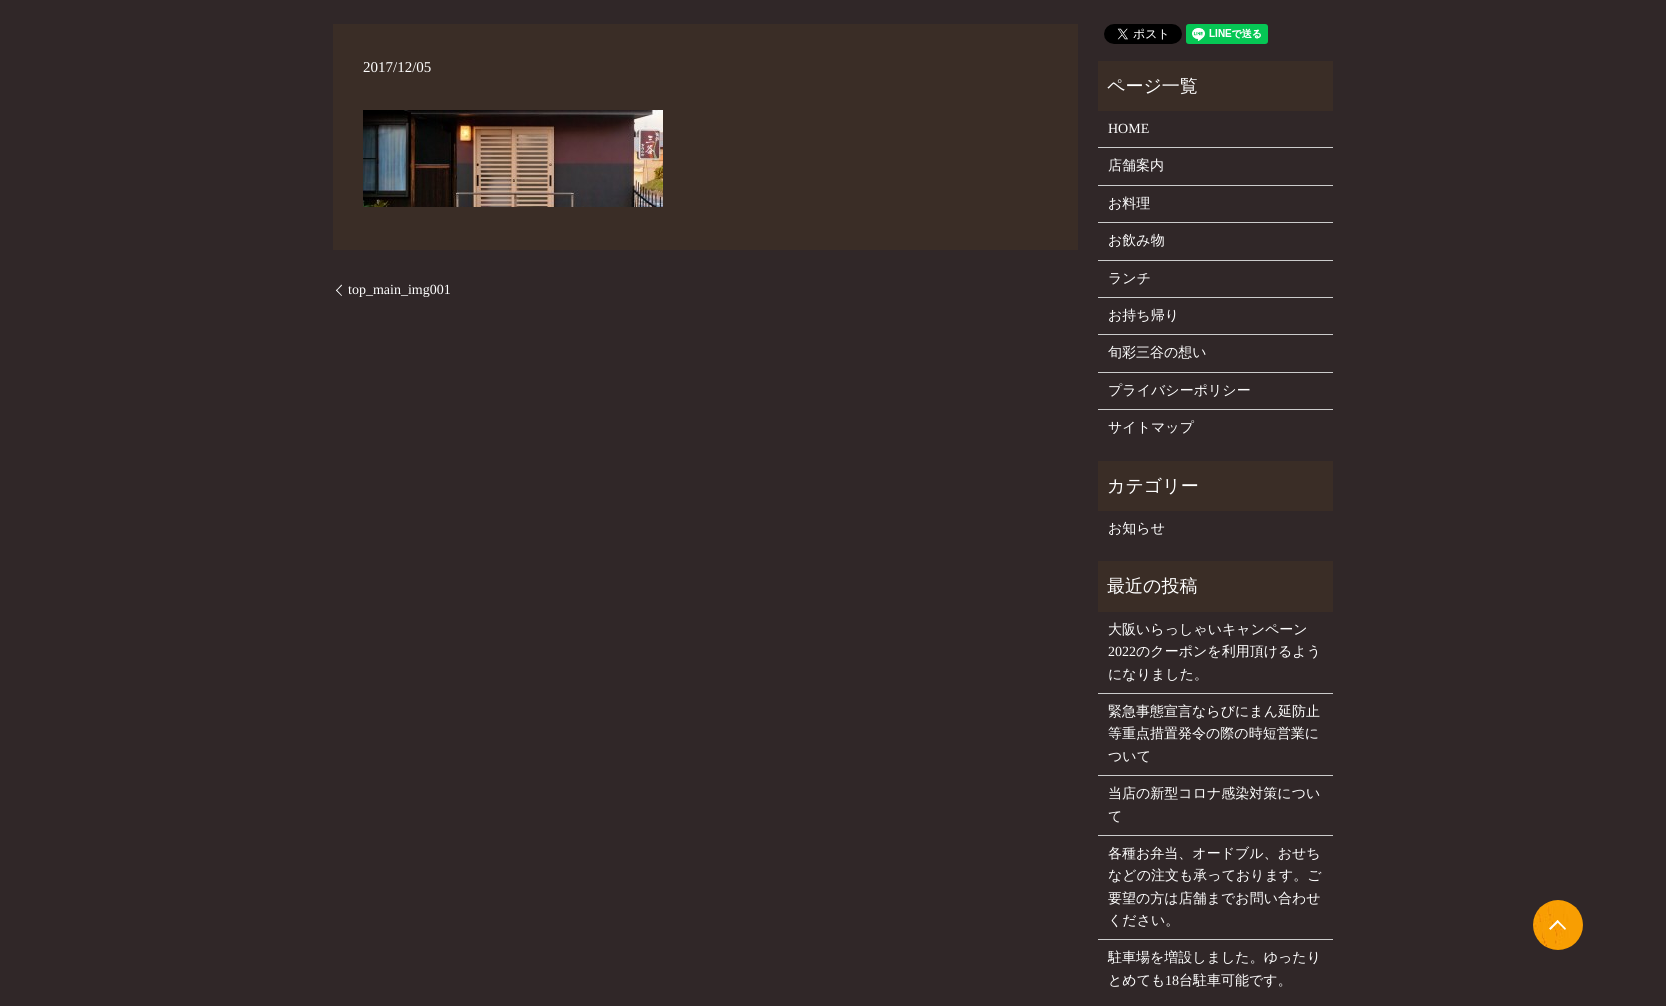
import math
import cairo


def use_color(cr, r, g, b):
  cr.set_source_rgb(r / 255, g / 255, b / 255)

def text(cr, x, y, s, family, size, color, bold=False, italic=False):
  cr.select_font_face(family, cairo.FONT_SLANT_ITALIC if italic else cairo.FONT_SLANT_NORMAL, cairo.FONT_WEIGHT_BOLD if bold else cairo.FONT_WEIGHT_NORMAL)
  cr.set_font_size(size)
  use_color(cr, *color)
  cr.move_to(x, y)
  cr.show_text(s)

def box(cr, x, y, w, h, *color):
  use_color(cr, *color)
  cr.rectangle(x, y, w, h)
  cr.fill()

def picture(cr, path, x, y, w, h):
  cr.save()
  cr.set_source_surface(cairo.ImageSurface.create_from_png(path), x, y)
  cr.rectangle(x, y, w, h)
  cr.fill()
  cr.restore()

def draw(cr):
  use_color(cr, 48, 39, 40)
  cr.paint()
  box(cr, 333, 24, 745, 226, 58, 45, 38)
  picture(cr, "img_01.png", 363, 110, 300, 97)
  use_color(cr, 255, 255, 255)
  cr.new_path()
  cr.move_to(336, 290.5)
  cr.line_to(341.5, 284.5)
  cr.line_to(342, 285.5)
  cr.line_to(336.5, 291)
  cr.close_path()
  cr.fill()
  cr.new_path()
  cr.move_to(341.5, 296)
  cr.line_to(336, 290.5)
  cr.line_to(336.5, 289.5)
  cr.line_to(342, 295.5)
  cr.close_path()
  cr.fill()
  picture(cr, "img_02.png", 1104, 24, 78, 20)
  picture(cr, "img_03.png", 1186, 24, 82, 20)
  box(cr, 1098, 61, 235, 50, 58, 45, 38)
  box(cr, 1098, 147, 235, 1, 204, 204, 204)
  box(cr, 1098, 185, 235, 1, 204, 204, 204)
  box(cr, 1098, 222, 235, 1, 204, 204, 204)
  box(cr, 1098, 260, 235, 1, 204, 204, 204)
  box(cr, 1098, 297, 235, 1, 204, 204, 204)
  box(cr, 1098, 334, 235, 1, 204, 204, 204)
  box(cr, 1098, 372, 235, 1, 204, 204, 204)
  box(cr, 1098, 409, 235, 1, 204, 204, 204)
  box(cr, 1098, 461, 235, 50, 58, 45, 38)
  box(cr, 1098, 561, 235, 51, 58, 45, 38)
  box(cr, 1098, 693, 235, 1, 204, 204, 204)
  box(cr, 1098, 775, 235, 1, 204, 204, 204)
  box(cr, 1098, 835, 235, 1, 204, 204, 204)
  box(cr, 1098, 939, 235, 1, 204, 204, 204)
  picture(cr, "img_04.png", 1533, 900, 50, 50)
  use_color(cr, 255, 255, 255)
  cr.new_path()
  cr.move_to(1557.5, 920)
  cr.line_to(1566, 928.5)
  cr.line_to(1565, 930)
  cr.line_to(1556.5, 921.5)
  cr.close_path()
  cr.fill()
  cr.new_path()
  cr.move_to(1557.5, 920)
  cr.line_to(1559, 921.5)
  cr.line_to(1550.5, 930)
  cr.line_to(1549, 928.5)
  cr.close_path()
  cr.fill()
  text(cr, 363, 72, "2017/12/05", "Liberation Serif", 15, (255, 255, 255))
  text(cr, 348, 294, "top_main_img001", "Liberation Serif", 14, (255, 255, 255))
  text(cr, 1107, 92, "ページ一覧", "WenQuanYi Zen Hei Medium", 18, (255, 255, 255))
  text(cr, 1108, 133, "HOME", "Liberation Serif", 14, (255, 255, 255))
  text(cr, 1108, 170, "店舗案内", "WenQuanYi Zen Hei Medium", 14, (255, 255, 255))
  text(cr, 1108, 208, "お料理", "WenQuanYi Zen Hei Medium", 14, (255, 255, 255))
  text(cr, 1108, 245, "お飲み物", "WenQuanYi Zen Hei Medium", 14, (255, 255, 255))
  text(cr, 1108, 283, "ランチ", "WenQuanYi Zen Hei Medium", 14, (255, 255, 255))
  text(cr, 1108, 320, "お持ち帰り", "WenQuanYi Zen Hei Medium", 14, (255, 255, 255))
  text(cr, 1108, 357, "旬彩三谷の想い", "WenQuanYi Zen Hei Medium", 14, (255, 255, 255))
  text(cr, 1108, 395, "プライバシーポリシー", "WenQuanYi Zen Hei Medium", 14, (255, 255, 255))
  text(cr, 1108, 432, "サイトマップ", "WenQuanYi Zen Hei Medium", 14, (255, 255, 255))
  text(cr, 1107, 492, "カテゴリー", "WenQuanYi Zen Hei Medium", 18, (255, 255, 255))
  text(cr, 1108, 533, "お知らせ", "WenQuanYi Zen Hei Medium", 14, (255, 255, 255))
  text(cr, 1107, 592, "最近の投稿", "WenQuanYi Zen Hei Medium", 18, (255, 255, 255))
  text(cr, 1108, 634, "大阪いらっしゃいキャンペーン", "WenQuanYi Zen Hei Medium", 14, (255, 255, 255))
  text(cr, 1108, 656, "2022", "Liberation Serif", 14, (255, 255, 255))
  text(cr, 1136, 656, "のクーポンを利用頂けるよう", "WenQuanYi Zen Hei Medium", 14, (255, 255, 255))
  text(cr, 1108, 679, "になりました。", "WenQuanYi Zen Hei Medium", 14, (255, 255, 255))
  text(cr, 1108, 716, "緊急事態宣言ならびにまん延防止", "WenQuanYi Zen Hei Medium", 14, (255, 255, 255))
  text(cr, 1108, 738, "等重点措置発令の際の時短営業に", "WenQuanYi Zen Hei Medium", 14, (255, 255, 255))
  text(cr, 1108, 761, "ついて", "WenQuanYi Zen Hei Medium", 14, (255, 255, 255))
  text(cr, 1108, 798, "当店の新型コロナ感染対策につい", "WenQuanYi Zen Hei Medium", 14, (255, 255, 255))
  text(cr, 1108, 821, "て", "WenQuanYi Zen Hei Medium", 14, (255, 255, 255))
  text(cr, 1108, 858, "各種お弁当、オードブル、おせち", "WenQuanYi Zen Hei Medium", 14, (255, 255, 255))
  text(cr, 1108, 880, "などの注文も承っております。ご", "WenQuanYi Zen Hei Medium", 14, (255, 255, 255))
  text(cr, 1108, 903, "要望の方は店舗までお問い合わせ", "WenQuanYi Zen Hei Medium", 14, (255, 255, 255))
  text(cr, 1108, 925, "ください。", "WenQuanYi Zen Hei Medium", 14, (255, 255, 255))
  text(cr, 1108, 962, "駐車場を増設しました。ゆったり", "WenQuanYi Zen Hei Medium", 14, (255, 255, 255))
  text(cr, 1108, 985, "とめても", "WenQuanYi Zen Hei Medium", 14, (255, 255, 255))
  text(cr, 1165, 985, "18", "Liberation Serif", 14, (255, 255, 255))
  text(cr, 1179, 985, "台駐車可能です。", "WenQuanYi Zen Hei Medium", 14, (255, 255, 255))


surface = cairo.ImageSurface(cairo.FORMAT_RGB24, 1666, 1006)
cr = cairo.Context(surface)
options = cairo.FontOptions()
options.set_hint_metrics(cairo.HINT_METRICS_OFF)
options.set_hint_style(cairo.HINT_STYLE_NONE)
cr.set_font_options(options)
cr.set_miter_limit(4)
draw(cr)
surface.write_to_png("out.png")
